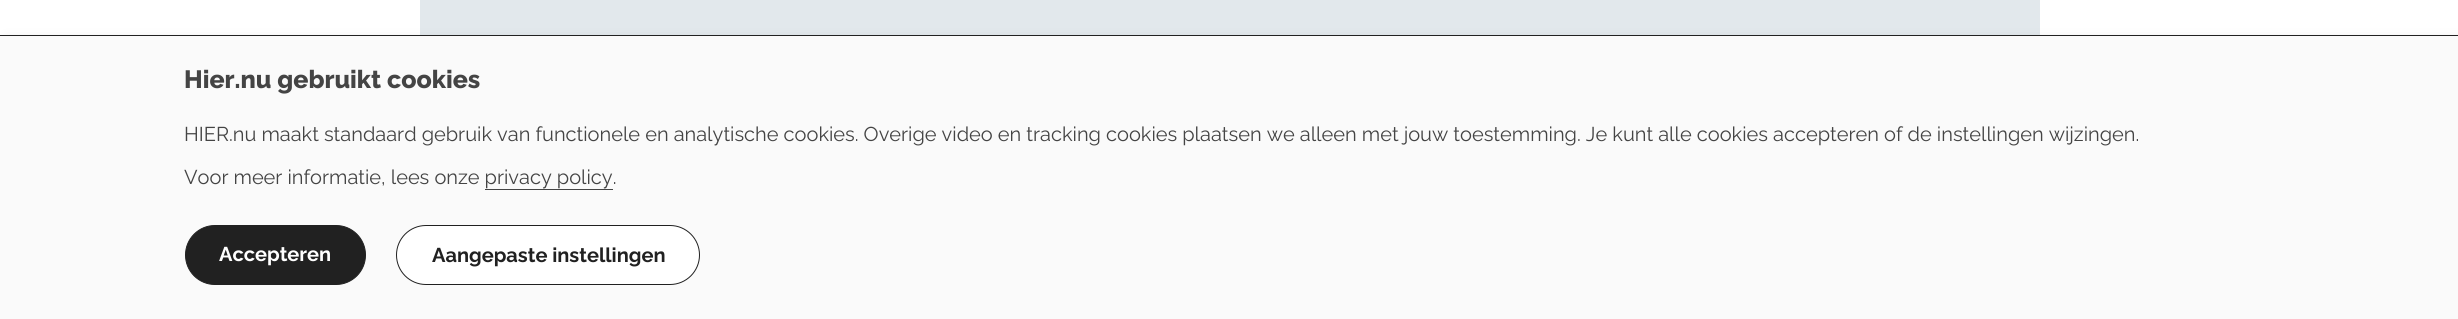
import math
import cairo


def use_color(cr, r, g, b):
  cr.set_source_rgb(r / 255, g / 255, b / 255)

def text(cr, x, y, s, family, size, color, bold=False, italic=False):
  cr.select_font_face(family, cairo.FONT_SLANT_ITALIC if italic else cairo.FONT_SLANT_NORMAL, cairo.FONT_WEIGHT_BOLD if bold else cairo.FONT_WEIGHT_NORMAL)
  cr.set_font_size(size)
  use_color(cr, *color)
  cr.move_to(x, y)
  cr.show_text(s)

def box(cr, x, y, w, h, *color):
  use_color(cr, *color)
  cr.rectangle(x, y, w, h)
  cr.fill()

def round_rect(cr, x, y, w, h, r):
  cr.new_sub_path()
  for i, (u, v) in enumerate([(x + w - r, y + h - r), (x + r, y + h - r), (x + r, y + r), (x + w - r, y + r)]):
    cr.arc(u, v, r, i * math.pi / 2, (i + 1) * math.pi / 2)
  cr.close_path()

def shadow(cr, x, y, w, h, r, blur, alpha):
  cr.push_group_with_content(cairo.CONTENT_ALPHA)
  cr.set_operator(cairo.OPERATOR_SOURCE)
  for i in range(15, -16, -2):
    e = blur * i / 6
    if min(w, h) + 2 * e > 0:
      cr.set_source_rgba(0, 0, 0, alpha * math.erfc((i - 1) / 8.5) / 2)
      round_rect(cr, x - e, y - e, w + 2 * e, h + 2 * e, max(0, min(r + e + blur * .6, min(w, h) / 2 + e)))
      cr.fill()
  cr.mask(cr.pop_group())

def draw(cr):
  use_color(cr, 255, 255, 255)
  cr.paint()
  box(cr, 420, 0, 1620, 35, 226, 232, 236)
  use_color(cr, 0, 0, 0)
  shadow(cr, 6, 41, 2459, 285, 0, 6, 0.19)
  box(cr, 0, 36, 2458, 283, 250, 250, 250)
  box(cr, 0, 35, 2458, 1, 33, 33, 33)
  box(cr, 485, 189, 128, 1, 68, 68, 68)
  use_color(cr, 33, 33, 33)
  round_rect(cr, 185.5, 225.5, 180, 59, 29.5)
  cr.fill_preserve()
  cr.set_line_width(1)
  cr.stroke()
  use_color(cr, 255, 255, 255)
  round_rect(cr, 396.5, 225.5, 303, 59, 29.5)
  cr.fill_preserve()
  use_color(cr, 33, 33, 33)
  cr.stroke()
  text(cr, 184, 88, "Hier.nu gebruikt cookies", "Raleway ExtraBold", 25, (68, 68, 68))
  text(cr, 184, 141, "HIER.nu maakt standaard gebruik van functionele en analytische cookies. Overige video en tracking cookies plaatsen we alleen met jouw toestemming. Je kunt alle cookies accepteren of de instellingen wijzingen.", "Raleway", 20, (68, 68, 68))
  text(cr, 184, 184, "Voor meer informatie, lees onze privacy policy.", "Raleway", 20, (68, 68, 68))
  text(cr, 219, 261, "Accepteren", "Raleway", 20, (255, 255, 255), bold=True)
  text(cr, 432, 262, "Aangepaste instellingen", "Raleway", 20, (33, 33, 33), bold=True)


surface = cairo.ImageSurface(cairo.FORMAT_RGB24, 2458, 319)
cr = cairo.Context(surface)
options = cairo.FontOptions()
options.set_hint_metrics(cairo.HINT_METRICS_OFF)
options.set_hint_style(cairo.HINT_STYLE_NONE)
cr.set_font_options(options)
cr.set_miter_limit(4)
draw(cr)
surface.write_to_png("out.png")
